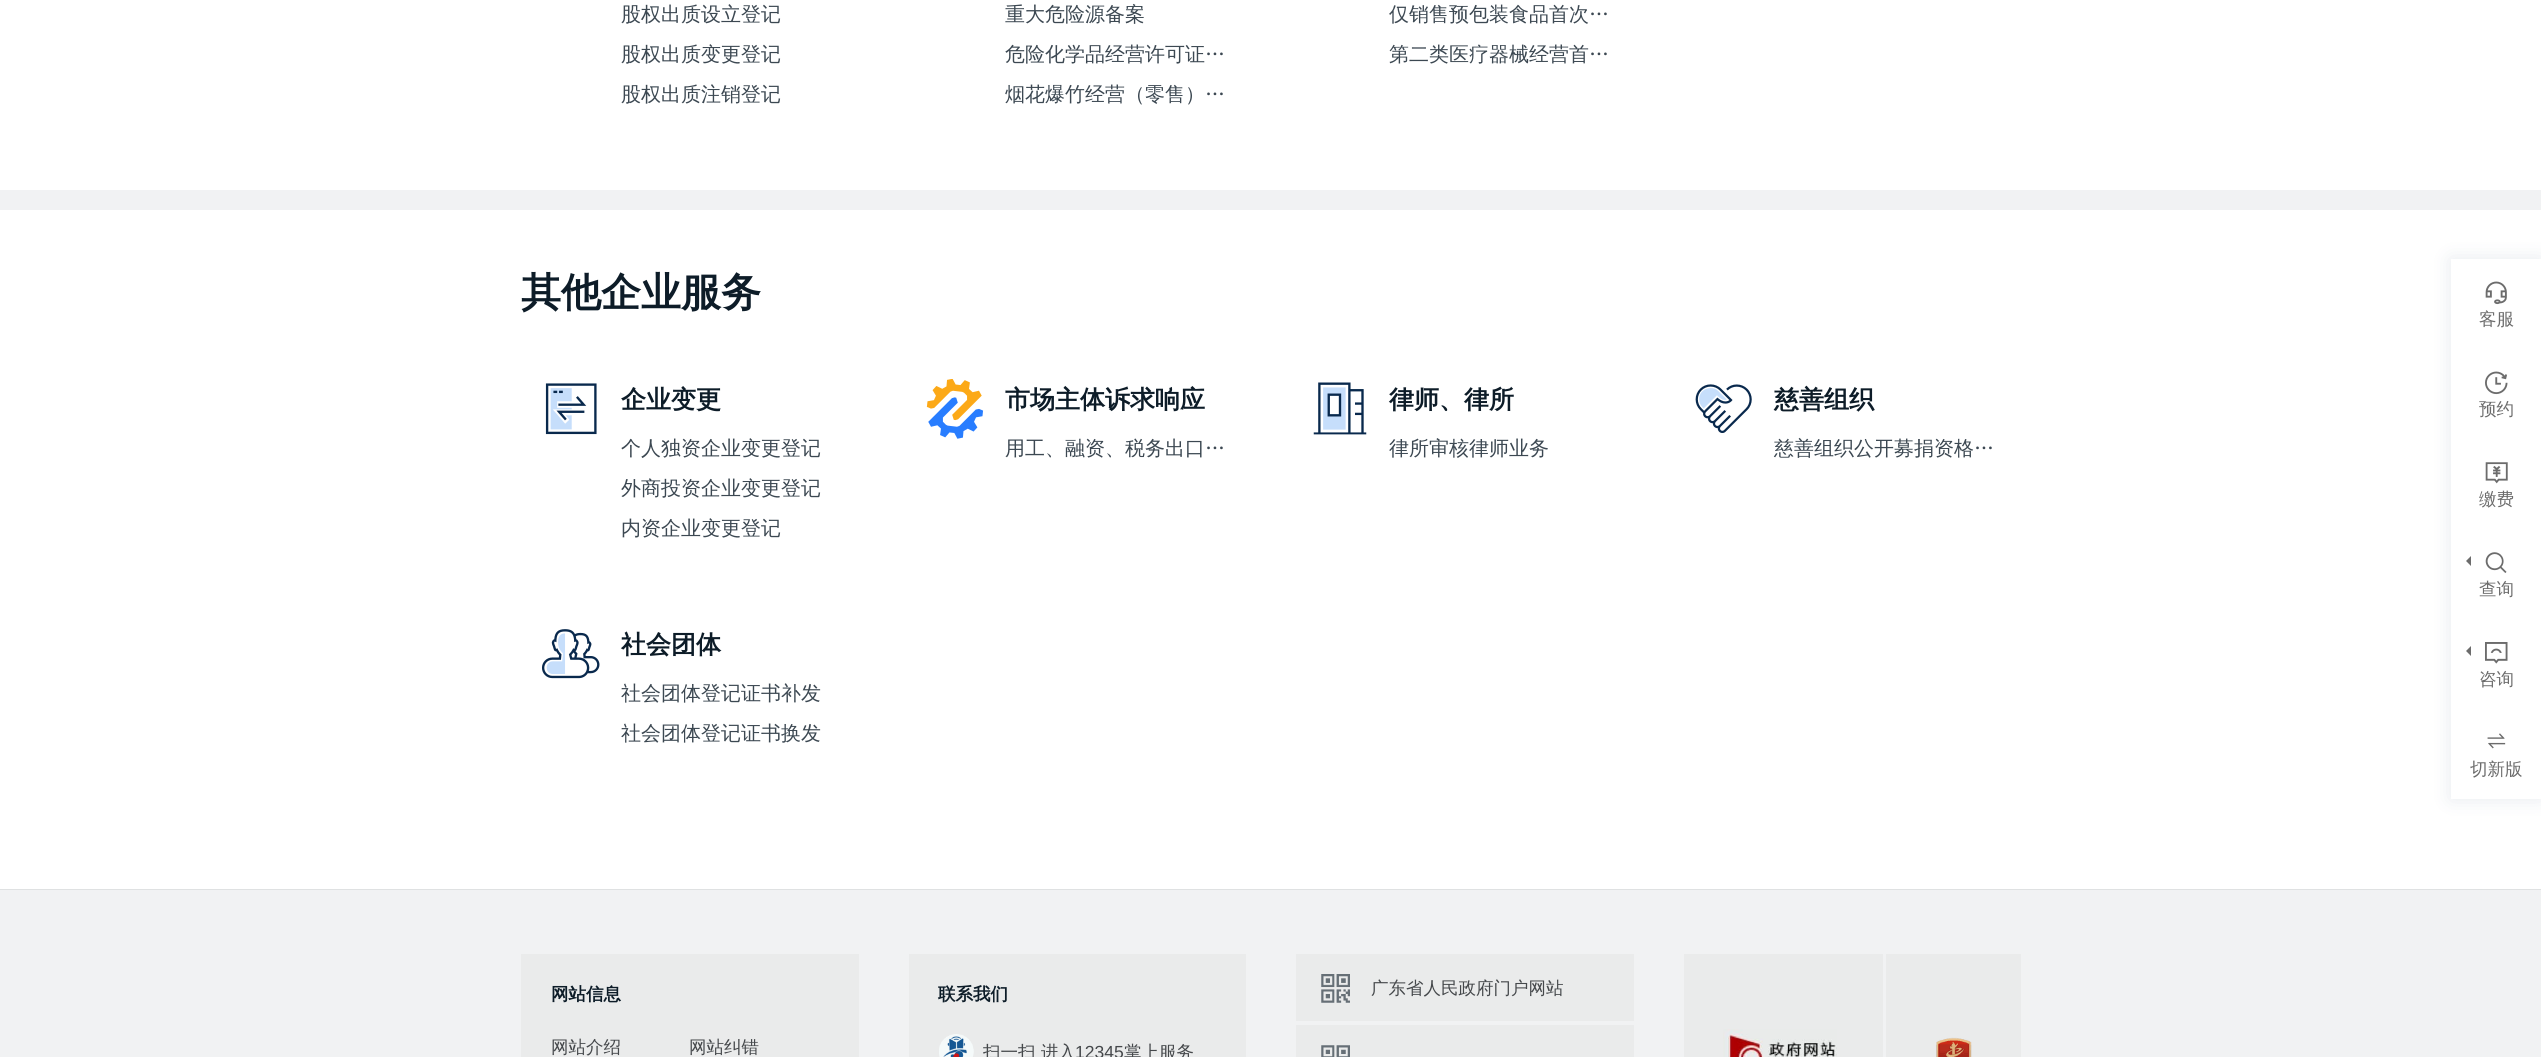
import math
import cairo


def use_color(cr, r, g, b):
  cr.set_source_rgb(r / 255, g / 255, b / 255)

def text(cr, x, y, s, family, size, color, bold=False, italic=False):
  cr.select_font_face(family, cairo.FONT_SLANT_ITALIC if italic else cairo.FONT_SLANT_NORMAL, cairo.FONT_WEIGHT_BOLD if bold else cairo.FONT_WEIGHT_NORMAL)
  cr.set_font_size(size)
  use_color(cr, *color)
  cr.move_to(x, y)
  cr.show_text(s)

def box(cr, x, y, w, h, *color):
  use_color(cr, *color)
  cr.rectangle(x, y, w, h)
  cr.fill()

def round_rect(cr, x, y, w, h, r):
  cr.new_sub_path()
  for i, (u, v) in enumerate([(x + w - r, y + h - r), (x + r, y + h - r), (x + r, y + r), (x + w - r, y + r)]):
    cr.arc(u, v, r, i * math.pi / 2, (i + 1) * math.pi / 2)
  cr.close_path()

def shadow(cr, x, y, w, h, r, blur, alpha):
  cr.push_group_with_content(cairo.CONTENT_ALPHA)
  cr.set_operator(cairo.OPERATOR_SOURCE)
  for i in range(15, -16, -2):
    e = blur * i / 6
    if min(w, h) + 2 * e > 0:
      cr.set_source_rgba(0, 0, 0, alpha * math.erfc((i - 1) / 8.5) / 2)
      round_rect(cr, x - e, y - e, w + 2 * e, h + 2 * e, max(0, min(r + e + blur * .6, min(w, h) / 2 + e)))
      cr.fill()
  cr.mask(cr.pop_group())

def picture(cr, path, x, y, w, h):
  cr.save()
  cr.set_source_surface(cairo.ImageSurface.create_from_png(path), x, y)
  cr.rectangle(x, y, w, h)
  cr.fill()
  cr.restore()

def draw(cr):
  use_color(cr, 255, 255, 255)
  cr.paint()
  box(cr, 0, 190, 2541, 20, 241, 242, 243)
  picture(cr, "img_01.png", 545, 383, 52, 52)
  picture(cr, "img_02.png", 926, 379, 58, 60)
  picture(cr, "img_03.png", 1313, 382, 54, 53)
  picture(cr, "img_04.png", 1695, 384, 57, 49)
  picture(cr, "img_05.png", 542, 629, 58, 50)
  use_color(cr, 9, 41, 77)
  shadow(cr, 2451, 259, 90, 540, 0, 9.5, 0.1)
  box(cr, 2451, 259, 90, 540, 255, 255, 255)
  picture(cr, "img_06.png", 2485, 281, 22, 24)
  picture(cr, "img_07.png", 2485, 371, 23, 24)
  picture(cr, "img_08.png", 2485, 462, 23, 22)
  use_color(cr, 108, 108, 108)
  cr.new_path()
  cr.move_to(2471, 556)
  cr.line_to(2471, 566)
  cr.line_to(2466, 561)
  cr.close_path()
  cr.fill()
  picture(cr, "img_09.png", 2485, 552, 22, 21)
  cr.new_path()
  cr.move_to(2471, 646)
  cr.line_to(2471, 656)
  cr.line_to(2466, 651)
  cr.close_path()
  cr.fill()
  picture(cr, "img_10.png", 2485, 642, 23, 22)
  picture(cr, "img_11.png", 2487, 733, 19, 16)
  box(cr, 0, 890, 2541, 167, 241, 242, 243)
  box(cr, 0, 889, 2541, 1, 223, 225, 226)
  box(cr, 521, 954, 338, 103, 234, 235, 235)
  box(cr, 909, 954, 337, 103, 234, 235, 235)
  picture(cr, "img_12.png", 939, 1034, 35, 23)
  box(cr, 1296, 954, 338, 67, 234, 235, 235)
  picture(cr, "img_13.png", 1321, 974, 29, 29)
  box(cr, 1296, 1025, 338, 32, 234, 235, 235)
  picture(cr, "img_14.png", 1321, 1045, 29, 12)
  box(cr, 1684, 954, 199, 103, 234, 235, 235)
  picture(cr, "img_15.png", 1723, 1029, 114, 28)
  box(cr, 1886, 954, 135, 103, 234, 235, 235)
  picture(cr, "img_16.png", 1936, 1037, 36, 20)
  text(cr, 621, 21, "股权出质设立登记", "WenQuanYi Zen Hei Medium", 20, (60, 72, 82))
  text(cr, 621, 61, "股权出质变更登记", "WenQuanYi Zen Hei Medium", 20, (60, 72, 82))
  text(cr, 621, 101, "股权出质注销登记", "WenQuanYi Zen Hei Medium", 20, (60, 72, 82))
  text(cr, 1005, 21, "重大危险源备案", "WenQuanYi Zen Hei Medium", 20, (60, 72, 82))
  text(cr, 1005, 61, "危险化学品经营许可证…", "WenQuanYi Zen Hei Medium", 20, (60, 72, 82))
  text(cr, 1005, 101, "烟花爆竹经营（零售）…", "WenQuanYi Zen Hei Medium", 20, (60, 72, 82))
  text(cr, 1389, 21, "仅销售预包装食品首次…", "WenQuanYi Zen Hei Medium", 20, (60, 72, 82))
  text(cr, 1389, 61, "第二类医疗器械经营首…", "WenQuanYi Zen Hei Medium", 20, (60, 72, 82))
  text(cr, 521, 306, "其他企业服务", "WenQuanYi Zen Hei", 40, (13, 28, 40), bold=True)
  text(cr, 621, 408, "企业变更", "WenQuanYi Zen Hei", 25, (13, 28, 40), bold=True)
  text(cr, 621, 455, "个人独资企业变更登记", "WenQuanYi Zen Hei Medium", 20, (60, 72, 82))
  text(cr, 621, 495, "外商投资企业变更登记", "WenQuanYi Zen Hei Medium", 20, (60, 72, 82))
  text(cr, 621, 535, "内资企业变更登记", "WenQuanYi Zen Hei Medium", 20, (60, 72, 82))
  text(cr, 1005, 408, "市场主体诉求响应", "WenQuanYi Zen Hei", 25, (13, 28, 40), bold=True)
  text(cr, 1005, 455, "用工、融资、税务出口…", "WenQuanYi Zen Hei Medium", 20, (60, 72, 82))
  text(cr, 1389, 408, "律师、律所", "WenQuanYi Zen Hei", 25, (13, 28, 40), bold=True)
  text(cr, 1389, 455, "律所审核律师业务", "WenQuanYi Zen Hei Medium", 20, (60, 72, 82))
  text(cr, 1774, 408, "慈善组织", "WenQuanYi Zen Hei", 25, (13, 28, 40), bold=True)
  text(cr, 1774, 455, "慈善组织公开募捐资格…", "WenQuanYi Zen Hei Medium", 20, (60, 72, 82))
  text(cr, 621, 653, "社会团体", "WenQuanYi Zen Hei", 25, (13, 28, 40), bold=True)
  text(cr, 621, 700, "社会团体登记证书补发", "WenQuanYi Zen Hei Medium", 20, (60, 72, 82))
  text(cr, 621, 740, "社会团体登记证书换发", "WenQuanYi Zen Hei Medium", 20, (60, 72, 82))
  text(cr, 2479, 325, "客服", "WenQuanYi Zen Hei Medium", 17.5, (108, 108, 108))
  text(cr, 2479, 415, "预约", "WenQuanYi Zen Hei Medium", 17.5, (108, 108, 108))
  text(cr, 2479, 505, "缴费", "WenQuanYi Zen Hei Medium", 17.5, (108, 108, 108))
  text(cr, 2479, 595, "查询", "WenQuanYi Zen Hei Medium", 17.5, (108, 108, 108))
  text(cr, 2479, 685, "咨询", "WenQuanYi Zen Hei Medium", 17.5, (108, 108, 108))
  text(cr, 2470, 775, "切新版", "WenQuanYi Zen Hei Medium", 17.5, (108, 108, 108))
  text(cr, 551, 1000, "网站信息", "WenQuanYi Zen Hei", 17.5, (13, 28, 40), bold=True)
  text(cr, 551, 1053, "网站介绍", "WenQuanYi Zen Hei Medium", 17.5, (69, 72, 75))
  text(cr, 689, 1053, "网站纠错", "WenQuanYi Zen Hei Medium", 17.5, (69, 72, 75))
  text(cr, 938, 1000, "联系我们", "WenQuanYi Zen Hei", 17.5, (13, 28, 40), bold=True)
  text(cr, 983, 1058, "扫一扫 进入", "WenQuanYi Zen Hei Medium", 17.5, (69, 72, 75))
  text(cr, 1075, 1058, "12345", "Liberation Sans", 17.5, (69, 72, 75))
  text(cr, 1124, 1058, "掌上服务", "WenQuanYi Zen Hei Medium", 17.5, (69, 72, 75))
  text(cr, 1371, 994, "广东省人民政府门户网站", "WenQuanYi Zen Hei Medium", 17.5, (69, 72, 75))


surface = cairo.ImageSurface(cairo.FORMAT_RGB24, 2541, 1057)
cr = cairo.Context(surface)
options = cairo.FontOptions()
options.set_hint_metrics(cairo.HINT_METRICS_OFF)
options.set_hint_style(cairo.HINT_STYLE_NONE)
cr.set_font_options(options)
cr.set_miter_limit(4)
draw(cr)
surface.write_to_png("out.png")
